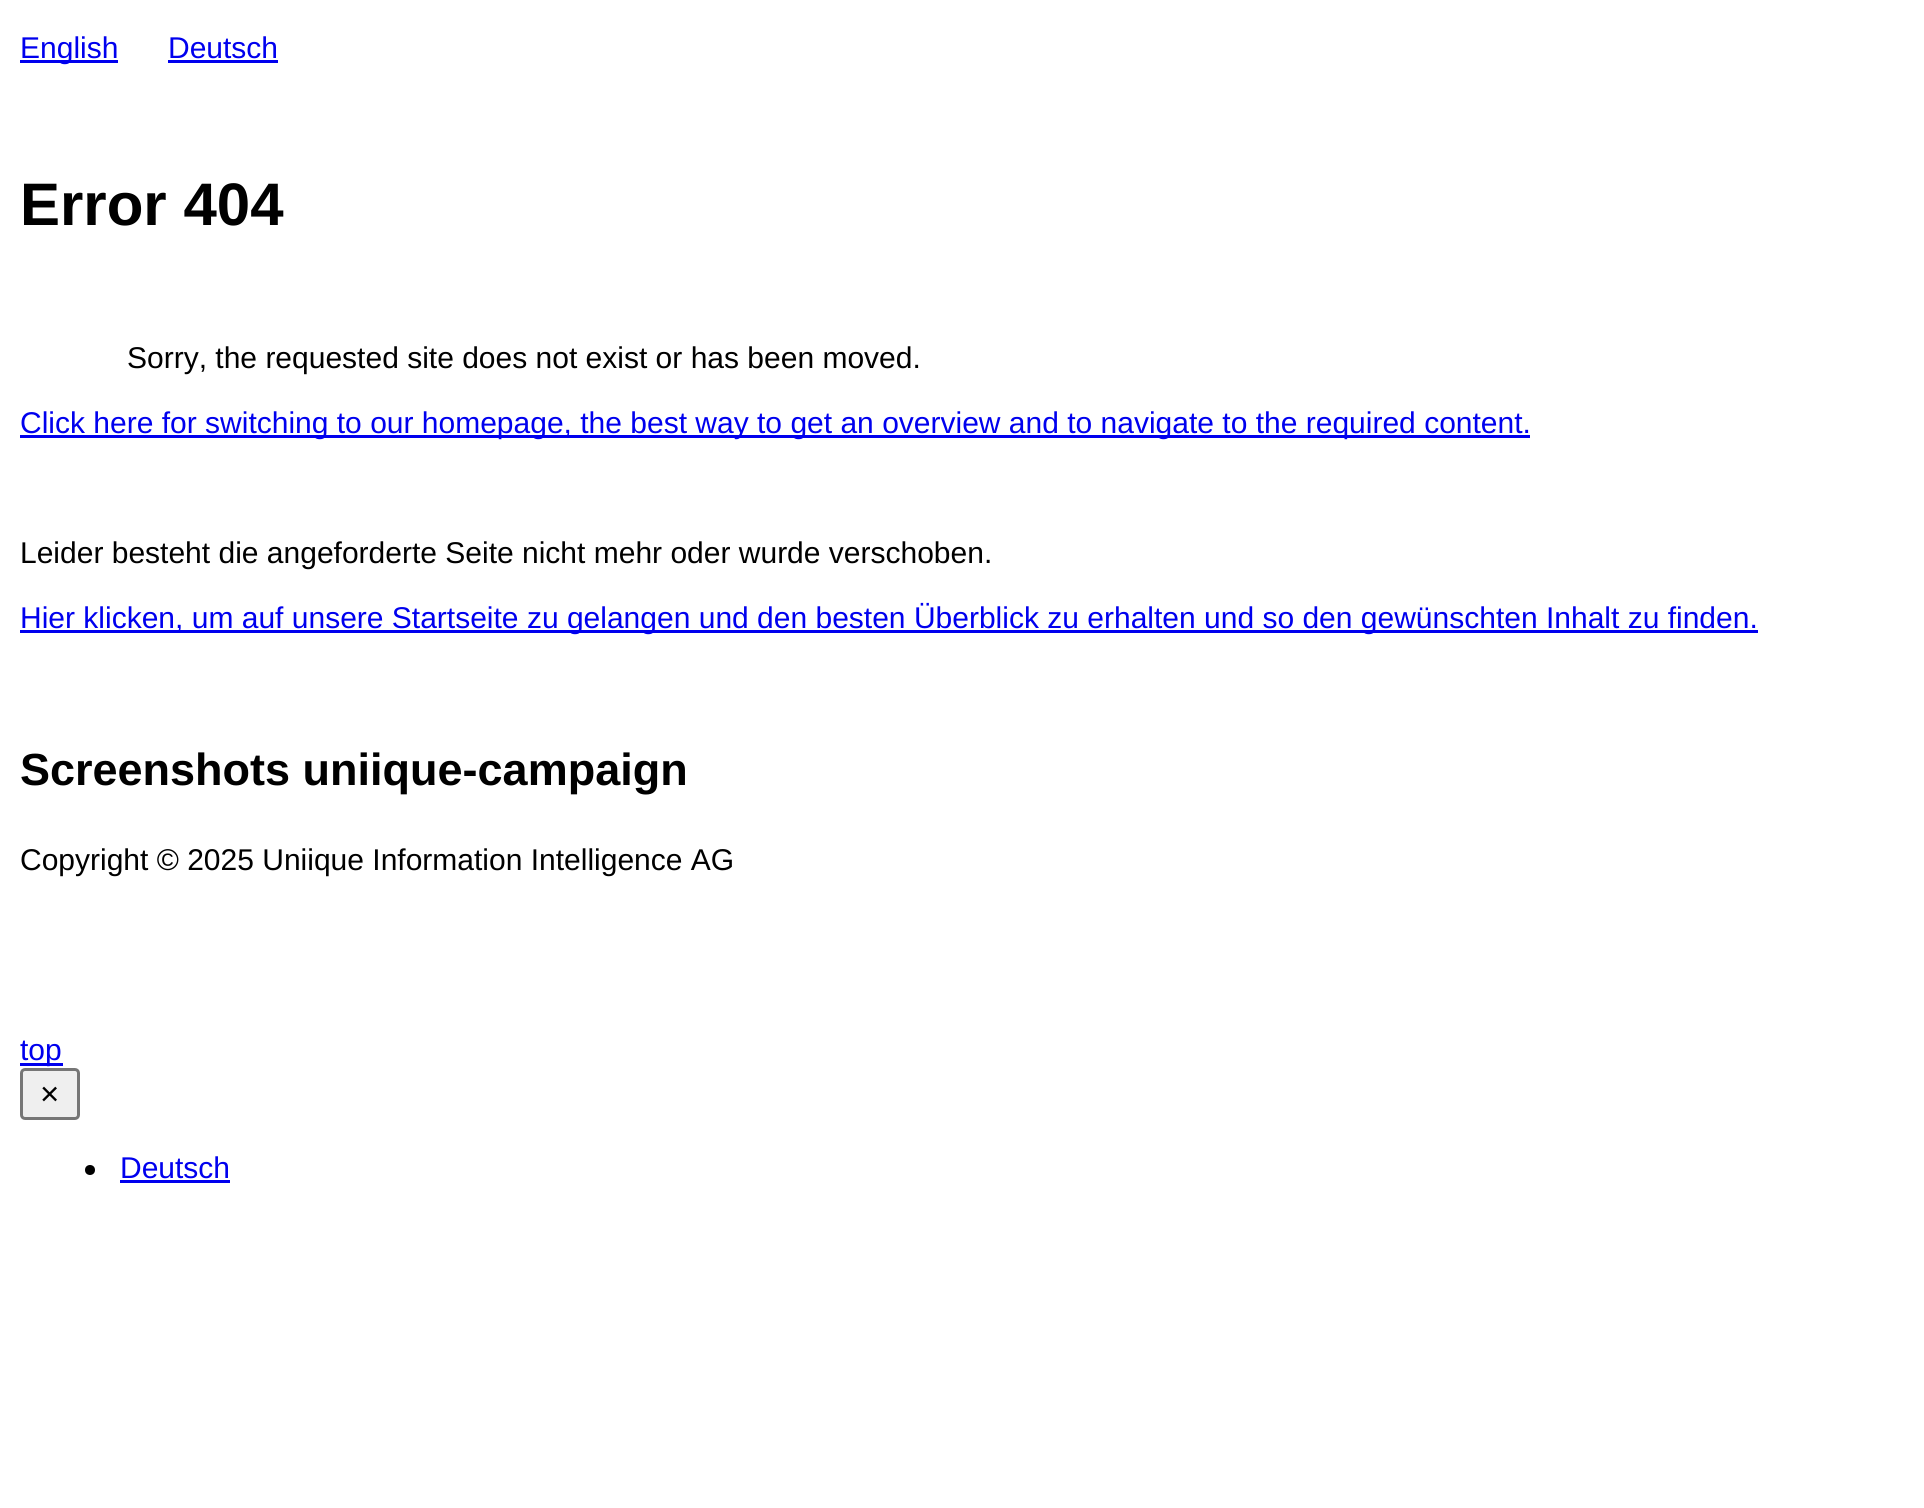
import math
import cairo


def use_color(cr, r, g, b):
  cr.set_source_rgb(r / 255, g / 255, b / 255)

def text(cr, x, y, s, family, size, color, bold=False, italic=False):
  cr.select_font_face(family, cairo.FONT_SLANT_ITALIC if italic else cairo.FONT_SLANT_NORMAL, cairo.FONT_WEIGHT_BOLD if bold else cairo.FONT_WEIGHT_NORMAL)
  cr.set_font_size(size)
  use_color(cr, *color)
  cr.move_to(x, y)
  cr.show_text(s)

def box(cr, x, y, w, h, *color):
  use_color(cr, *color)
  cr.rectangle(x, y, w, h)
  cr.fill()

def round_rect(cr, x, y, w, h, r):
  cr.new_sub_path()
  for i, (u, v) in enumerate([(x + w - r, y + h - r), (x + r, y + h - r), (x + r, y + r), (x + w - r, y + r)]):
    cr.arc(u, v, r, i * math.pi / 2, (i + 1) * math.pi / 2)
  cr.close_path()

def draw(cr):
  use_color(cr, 255, 255, 255)
  cr.paint()
  box(cr, 20, 60, 98, 3, 0, 0, 238)
  box(cr, 168, 60, 110, 3, 0, 0, 238)
  box(cr, 20, 435, 1510, 3, 0, 0, 238)
  box(cr, 20, 630, 1738, 3, 0, 0, 238)
  box(cr, 20, 1063, 43, 3, 0, 0, 238)
  use_color(cr, 239, 239, 239)
  round_rect(cr, 21.5, 1069.5, 57, 49, 3.5)
  cr.fill_preserve()
  use_color(cr, 118, 118, 118)
  cr.set_line_width(3)
  cr.stroke()
  use_color(cr, 0, 0, 0)
  cr.arc(90, 1170, 5, 0, 2 * math.pi)
  cr.fill()
  box(cr, 120, 1180, 110, 3, 0, 0, 238)
  text(cr, 20, 58, "English", "Liberation Sans", 30, (0, 0, 238))
  text(cr, 168, 58, "Deutsch", "Liberation Sans", 30, (0, 0, 238))
  text(cr, 20, 225, "Error 404", "Liberation Sans", 60, (0, 0, 0), bold=True)
  text(cr, 127, 368, "Sorry, the requested site does not exist or has been moved.", "Liberation Sans", 30, (0, 0, 0))
  text(cr, 20, 433, "Click here for switching to our homepage, the best way to get an overview and to navigate to the required content.", "Liberation Sans", 30, (0, 0, 238))
  text(cr, 20, 563, "Leider besteht die angeforderte Seite nicht mehr oder wurde verschoben.", "Liberation Sans", 30, (0, 0, 0))
  text(cr, 20, 628, "Hier klicken, um auf unsere Startseite zu gelangen und den besten Überblick zu erhalten und so den gewünschten Inhalt zu finden.", "Liberation Sans", 30, (0, 0, 238))
  text(cr, 20, 785, "Screenshots uniique-campaign", "Liberation Sans", 45, (0, 0, 0), bold=True)
  text(cr, 20, 870, "Copyright © 2025 Uniique Information Intelligence AG", "Liberation Sans", 30, (0, 0, 0))
  text(cr, 20, 1060, "top", "Liberation Sans", 30, (0, 0, 238))
  text(cr, 40, 1105, "×", "Liberation Sans", 33, (0, 0, 0))
  text(cr, 120, 1178, "Deutsch", "Liberation Sans", 30, (0, 0, 238))


surface = cairo.ImageSurface(cairo.FORMAT_RGB24, 1924, 1508)
cr = cairo.Context(surface)
options = cairo.FontOptions()
options.set_hint_metrics(cairo.HINT_METRICS_OFF)
options.set_hint_style(cairo.HINT_STYLE_NONE)
cr.set_font_options(options)
cr.set_miter_limit(4)
draw(cr)
surface.write_to_png("out.png")
